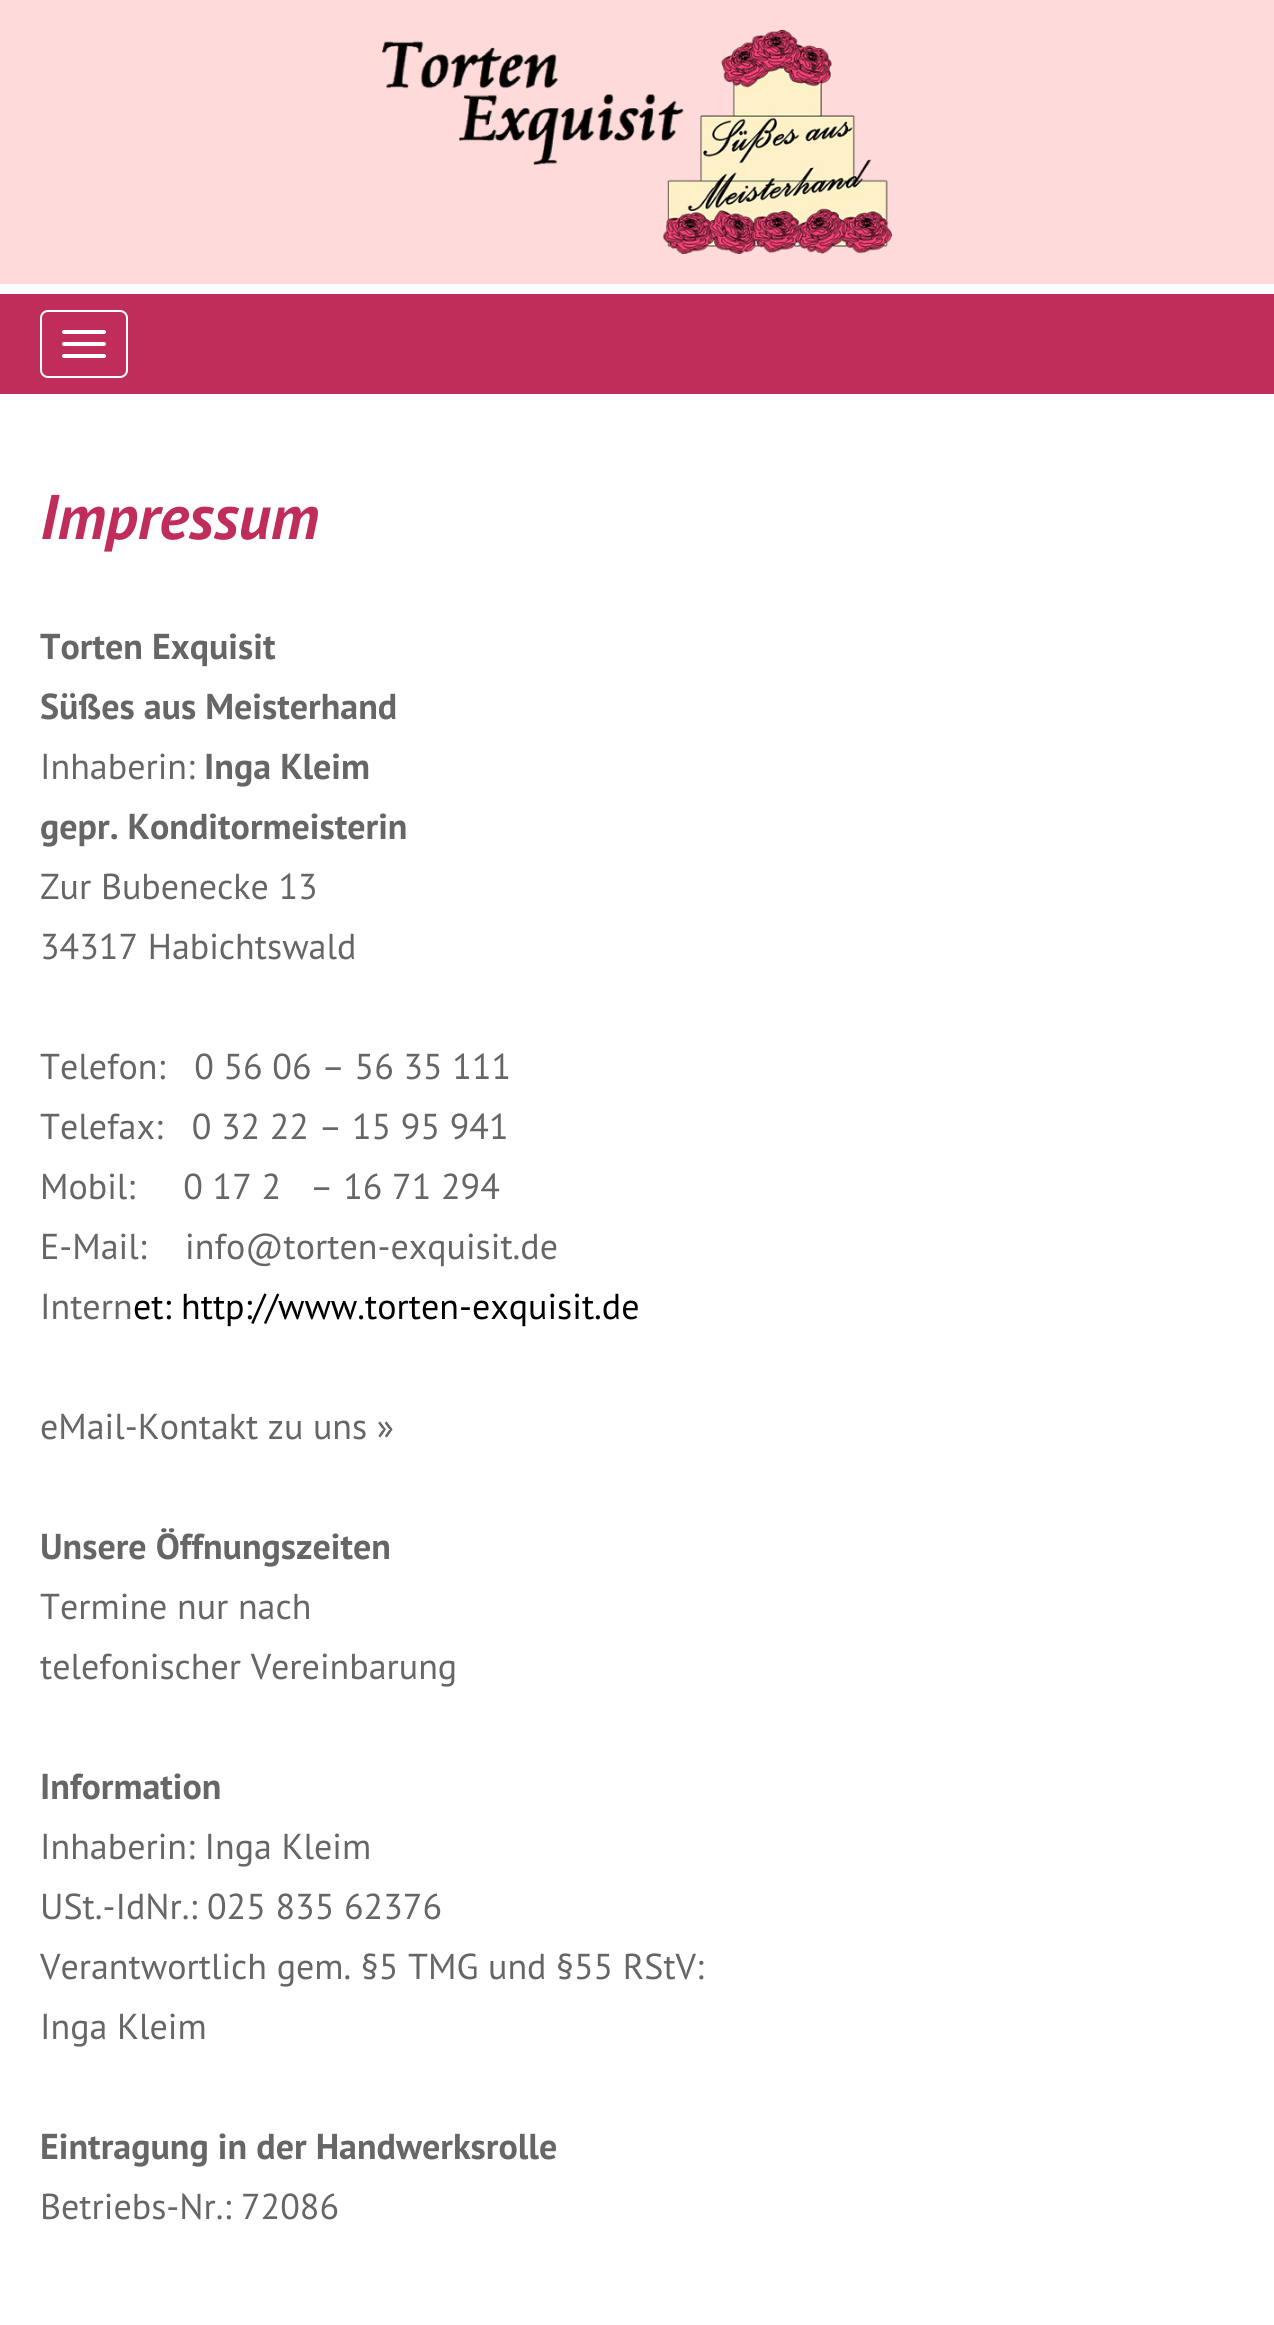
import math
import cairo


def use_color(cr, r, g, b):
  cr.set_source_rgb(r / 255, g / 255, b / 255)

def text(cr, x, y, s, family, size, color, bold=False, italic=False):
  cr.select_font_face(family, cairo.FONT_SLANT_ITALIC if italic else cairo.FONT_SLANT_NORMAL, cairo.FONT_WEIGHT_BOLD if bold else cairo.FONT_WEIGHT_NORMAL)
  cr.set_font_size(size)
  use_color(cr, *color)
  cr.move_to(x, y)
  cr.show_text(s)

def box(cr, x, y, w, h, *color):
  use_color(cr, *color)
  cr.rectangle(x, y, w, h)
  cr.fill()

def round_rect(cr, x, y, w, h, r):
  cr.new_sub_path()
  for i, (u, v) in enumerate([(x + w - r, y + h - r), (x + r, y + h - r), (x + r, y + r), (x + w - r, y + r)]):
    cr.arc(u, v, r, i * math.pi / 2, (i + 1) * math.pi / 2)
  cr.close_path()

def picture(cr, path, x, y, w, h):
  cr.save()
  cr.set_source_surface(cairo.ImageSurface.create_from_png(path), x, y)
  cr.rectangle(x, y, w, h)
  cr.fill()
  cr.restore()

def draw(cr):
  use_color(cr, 255, 255, 255)
  cr.paint()
  box(cr, 0, 0, 1274, 284, 255, 218, 218)
  picture(cr, "img_01.png", 382, 30, 510, 224)
  box(cr, 0, 294, 1274, 100, 192, 45, 90)
  round_rect(cr, 41, 311, 86, 66, 7)
  use_color(cr, 255, 255, 255)
  cr.stroke()
  round_rect(cr, 62, 330, 44, 4, 2)
  cr.fill()
  round_rect(cr, 62, 342, 44, 4, 2)
  cr.fill()
  round_rect(cr, 62, 354, 44, 4, 2)
  cr.fill()
  text(cr, 40, 539, "Impressum", "PT Sans", 63, (192, 45, 90), bold=True, italic=True)
  text(cr, 40, 659, "Torten Exquisit", "PT Sans", 36, (102, 102, 102), bold=True)
  text(cr, 40, 719, "Süßes aus Meisterhand", "PT Sans", 36, (102, 102, 102), bold=True)
  text(cr, 40, 779, "Inhaberin:", "PT Sans", 36, (102, 102, 102))
  text(cr, 204, 779, "Inga Kleim", "PT Sans", 36, (102, 102, 102), bold=True)
  text(cr, 40, 839, "gepr. Konditormeisterin", "PT Sans", 36, (102, 102, 102), bold=True)
  text(cr, 40, 899, "Zur Bubenecke 13", "PT Sans", 36, (102, 102, 102))
  text(cr, 40, 959, "34317 Habichtswald", "PT Sans", 36, (102, 102, 102))
  text(cr, 40, 1079, "Telefon:   0 56 06 – 56 35 111", "PT Sans", 36, (102, 102, 102))
  text(cr, 40, 1139, "Telefax:   0 32 22 – 15 95 941", "PT Sans", 36, (102, 102, 102))
  text(cr, 40, 1199, "Mobil:     0 17 2   – 16 71 294", "PT Sans", 36, (102, 102, 102))
  text(cr, 40, 1259, "E-Mail:    info@torten-exquisit.de", "PT Sans", 36, (102, 102, 102))
  text(cr, 40, 1319, "Intern", "PT Sans", 36, (102, 102, 102))
  text(cr, 133, 1319, "et: http://www.torten-exquisit.de", "PT Sans", 36, (0, 0, 0))
  text(cr, 40, 1439, "eMail-Kontakt zu uns »", "PT Sans", 36, (102, 102, 102))
  text(cr, 40, 1559, "Unsere Öffnungszeiten", "PT Sans", 36, (102, 102, 102), bold=True)
  text(cr, 40, 1619, "Termine nur nach", "PT Sans", 36, (102, 102, 102))
  text(cr, 40, 1679, "telefonischer Vereinbarung", "PT Sans", 36, (102, 102, 102))
  text(cr, 40, 1799, "Information", "PT Sans", 36, (102, 102, 102), bold=True)
  text(cr, 40, 1859, "Inhaberin: Inga Kleim", "PT Sans", 36, (102, 102, 102))
  text(cr, 40, 1919, "USt.-IdNr.: 025 835 62376", "PT Sans", 36, (102, 102, 102))
  text(cr, 40, 1979, "Verantwortlich gem. §5 TMG und §55 RStV:", "PT Sans", 36, (102, 102, 102))
  text(cr, 40, 2039, "Inga Kleim", "PT Sans", 36, (102, 102, 102))
  text(cr, 40, 2159, "Eintragung in der Handwerksrolle", "PT Sans", 36, (102, 102, 102), bold=True)
  text(cr, 40, 2219, "Betriebs-Nr.: 72086", "PT Sans", 36, (102, 102, 102))


surface = cairo.ImageSurface(cairo.FORMAT_RGB24, 1274, 2325)
cr = cairo.Context(surface)
options = cairo.FontOptions()
options.set_hint_metrics(cairo.HINT_METRICS_OFF)
options.set_hint_style(cairo.HINT_STYLE_NONE)
cr.set_font_options(options)
cr.set_miter_limit(4)
draw(cr)
surface.write_to_png("out.png")
